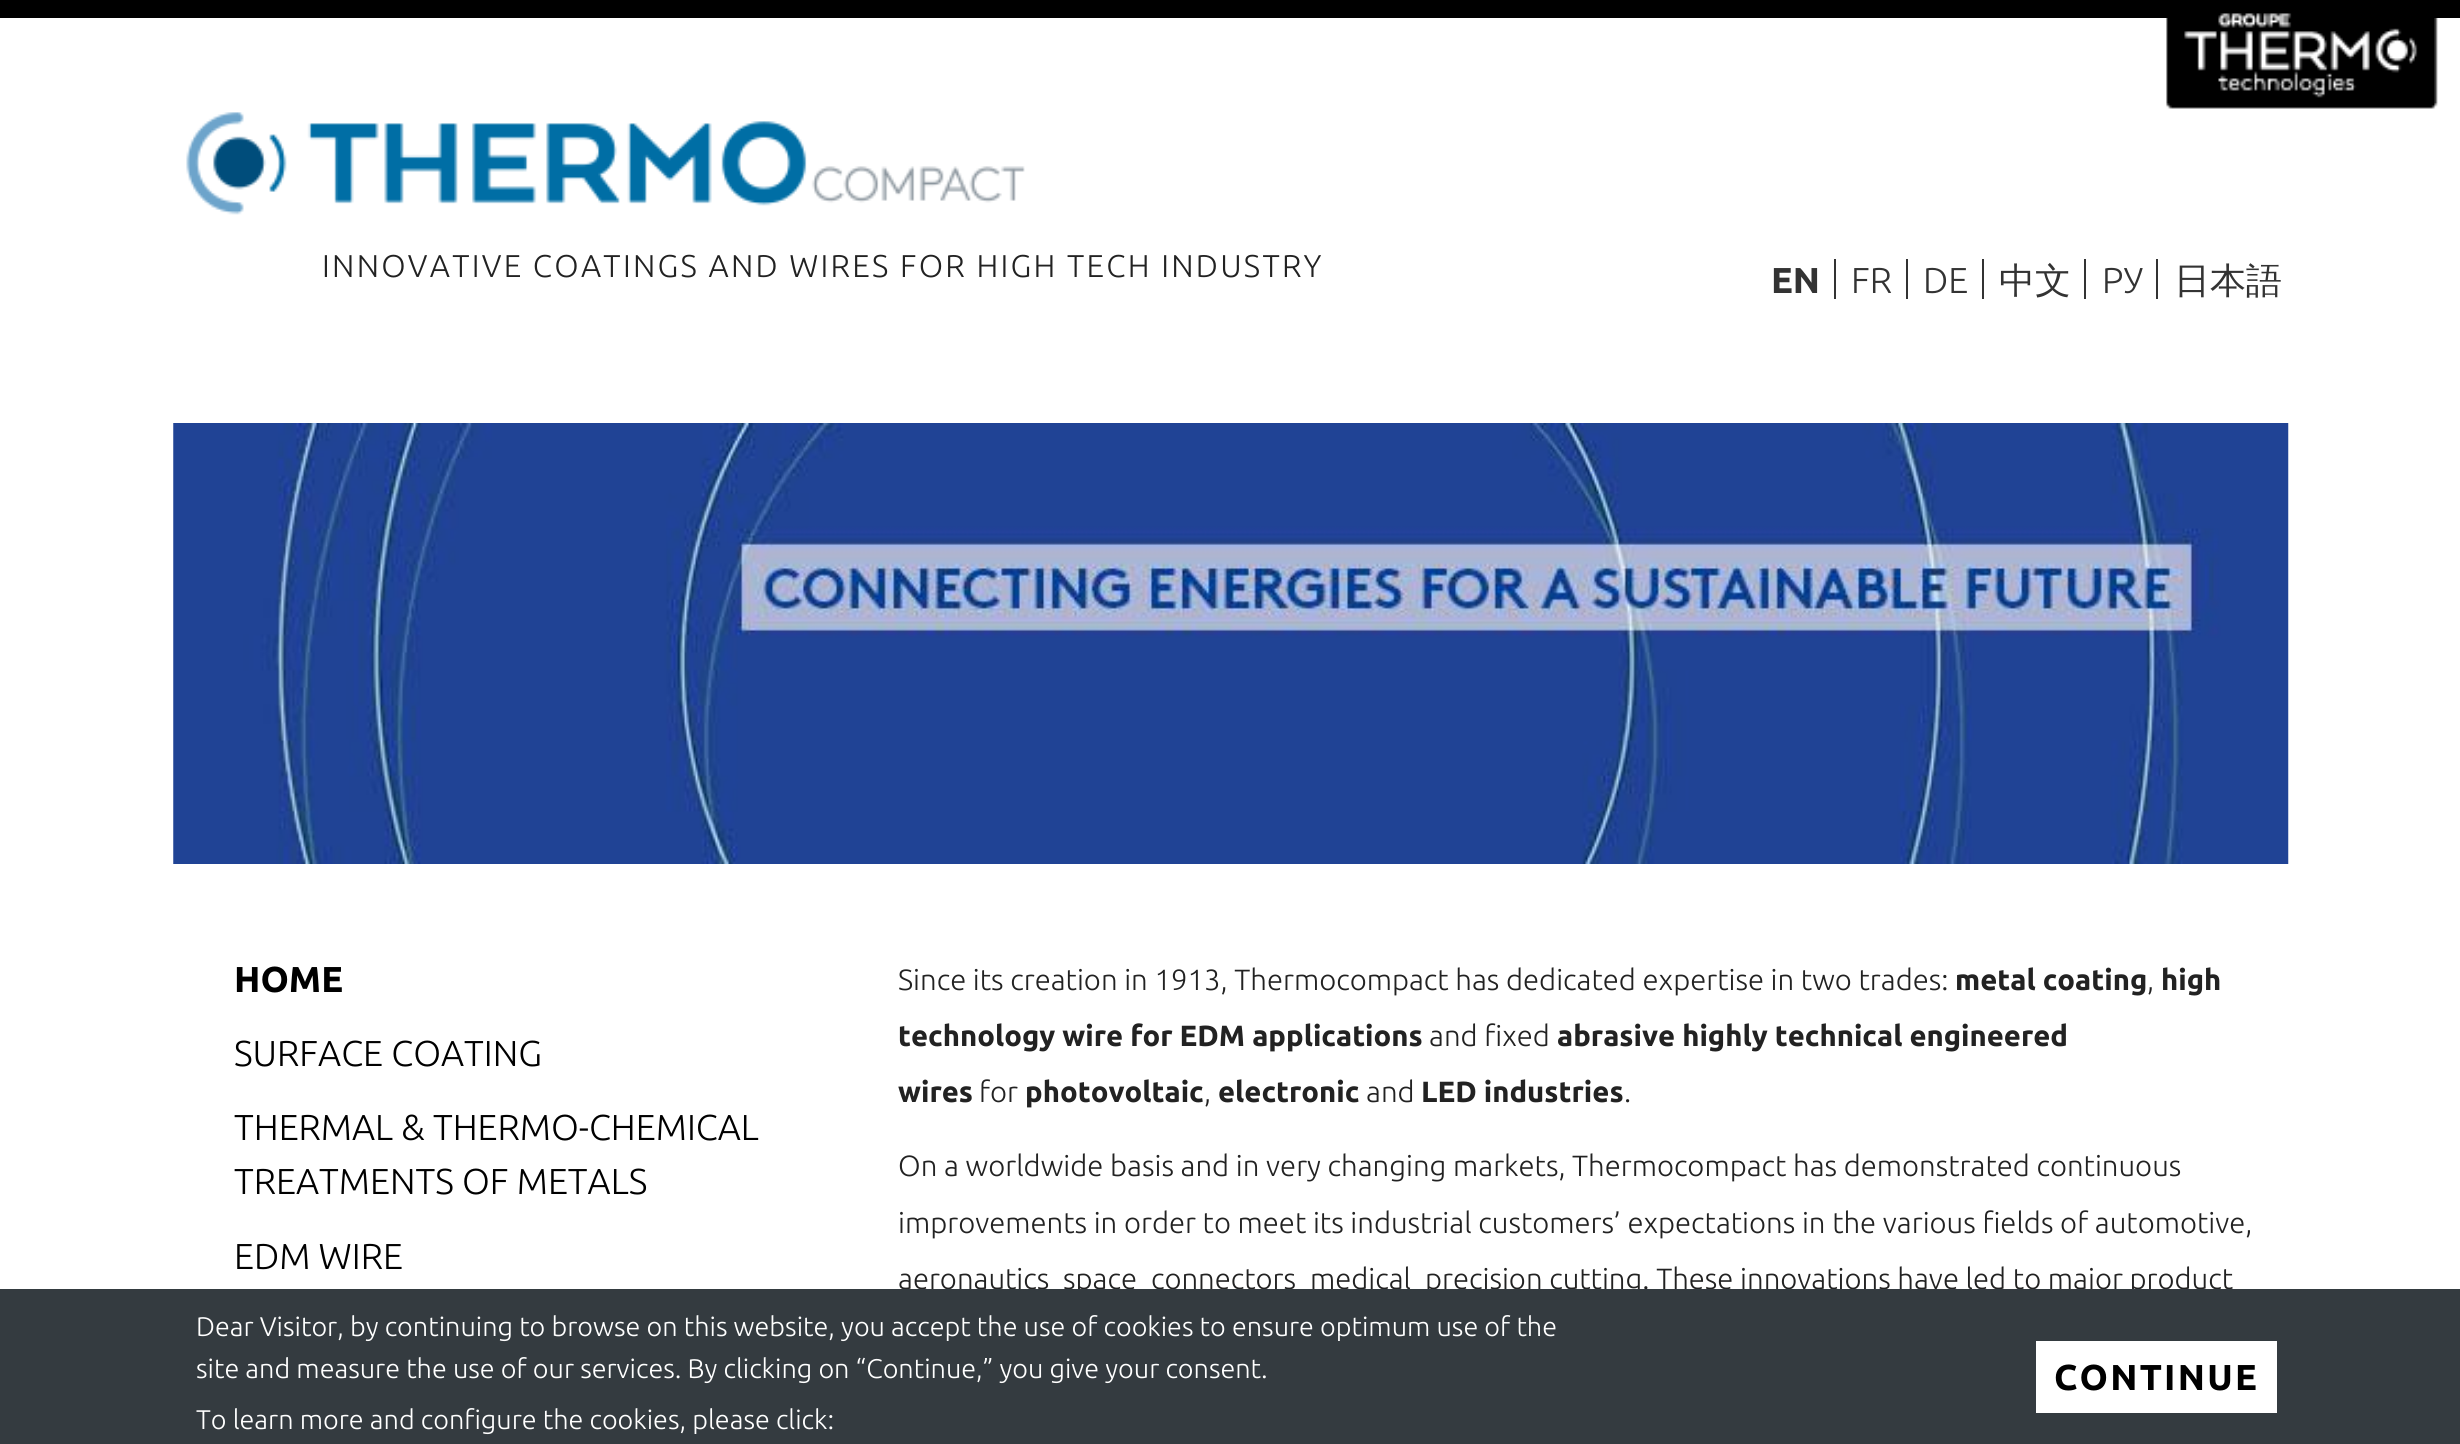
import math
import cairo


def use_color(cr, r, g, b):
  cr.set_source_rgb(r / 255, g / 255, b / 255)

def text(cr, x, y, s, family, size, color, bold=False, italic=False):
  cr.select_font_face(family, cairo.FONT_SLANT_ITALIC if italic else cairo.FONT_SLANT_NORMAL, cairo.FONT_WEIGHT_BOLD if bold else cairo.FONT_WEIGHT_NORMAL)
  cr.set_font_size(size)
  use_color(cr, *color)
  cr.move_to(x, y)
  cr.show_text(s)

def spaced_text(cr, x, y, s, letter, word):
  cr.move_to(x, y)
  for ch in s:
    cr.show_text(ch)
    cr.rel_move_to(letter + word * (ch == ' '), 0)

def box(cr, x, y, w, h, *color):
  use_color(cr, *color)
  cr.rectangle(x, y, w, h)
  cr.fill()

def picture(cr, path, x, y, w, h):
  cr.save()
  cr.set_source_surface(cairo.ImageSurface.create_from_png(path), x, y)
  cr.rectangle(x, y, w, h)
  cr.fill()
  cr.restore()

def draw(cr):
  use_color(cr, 255, 255, 255)
  cr.paint()
  box(cr, 0, 0, 2460, 18, 0, 0, 0)
  picture(cr, "img_01.png", 2166, 13, 272, 96)
  picture(cr, "img_02.png", 186, 112, 839, 103)
  box(cr, 1834, 259, 2, 40, 51, 51, 51)
  box(cr, 1906, 259, 2, 40, 51, 51, 51)
  box(cr, 1982, 259, 2, 40, 51, 51, 51)
  box(cr, 2084, 259, 2, 40, 51, 51, 51)
  box(cr, 2156, 259, 2, 40, 51, 51, 51)
  picture(cr, "img_03.png", 173, 423, 2116, 441)
  cr.select_font_face("Ubuntu Light")
  cr.set_font_size(31.5)
  use_color(cr, 34, 34, 34)
  spaced_text(cr, 322, 277, "INNOVATIVE COATINGS AND WIRES FOR HIGH TECH INDUSTRY", 2.25, 0)
  text(cr, 1771, 293, "EN", "Ubuntu", 36, (51, 51, 51), bold=True)
  text(cr, 1851, 293, "FR", "Ubuntu Light", 36, (51, 51, 51))
  text(cr, 1923, 293, "DE", "Ubuntu Light", 36, (51, 51, 51))
  text(cr, 1999, 293, "中文", "WenQuanYi Zen Hei Medium", 36, (51, 51, 51))
  text(cr, 2102, 293, "РУ", "Ubuntu Light", 36, (51, 51, 51))
  text(cr, 2174, 293, "日本語", "WenQuanYi Zen Hei Medium", 36, (51, 51, 51))
  text(cr, 234, 992, "HOME", "Ubuntu", 36, (0, 0, 0), bold=True)
  text(cr, 234, 1066, "SURFACE COATING", "Ubuntu Light", 36, (0, 0, 0))
  text(cr, 234, 1140, "THERMAL & THERMO-CHEMICAL", "Ubuntu Light", 36, (0, 0, 0))
  text(cr, 234, 1194, "TREATMENTS OF METALS", "Ubuntu Light", 36, (0, 0, 0))
  text(cr, 234, 1269, "EDM WIRE", "Ubuntu Light", 36, (0, 0, 0))
  text(cr, 898, 990, "Since its creation in 1913, Thermocompact has dedicated expertise in two trades:", "Ubuntu Light", 29.25, (34, 34, 34))
  text(cr, 1955, 990, "metal coating", "Ubuntu", 29.25, (34, 34, 34), bold=True)
  text(cr, 2147, 990, ",", "Ubuntu Light", 29.25, (34, 34, 34))
  text(cr, 2161, 990, "high", "Ubuntu", 29.25, (34, 34, 34), bold=True)
  text(cr, 898, 1046, "technology wire for EDM applications", "Ubuntu", 29.25, (34, 34, 34), bold=True)
  text(cr, 1429, 1046, "and fixed", "Ubuntu Light", 29.25, (34, 34, 34))
  text(cr, 1557, 1046, "abrasive highly technical engineered", "Ubuntu", 29.25, (34, 34, 34), bold=True)
  text(cr, 898, 1102, "wires", "Ubuntu", 29.25, (34, 34, 34), bold=True)
  text(cr, 979, 1102, "for", "Ubuntu Light", 29.25, (34, 34, 34))
  text(cr, 1025, 1102, "photovoltaic", "Ubuntu", 29.25, (34, 34, 34), bold=True)
  text(cr, 1204, 1102, ",", "Ubuntu Light", 29.25, (34, 34, 34))
  text(cr, 1218, 1102, "electronic", "Ubuntu", 29.25, (34, 34, 34), bold=True)
  text(cr, 1366, 1102, "and", "Ubuntu Light", 29.25, (34, 34, 34))
  text(cr, 1421, 1102, "LED industries", "Ubuntu", 29.25, (34, 34, 34), bold=True)
  text(cr, 1624, 1102, ".", "Ubuntu Light", 29.25, (34, 34, 34))
  text(cr, 898, 1176, "On a worldwide basis and in very changing markets,", "Ubuntu Light", 29.25, (34, 34, 34))
  text(cr, 1572, 1176, "Thermocompact has demonstrated continuous", "Ubuntu Light", 29.25, (34, 34, 34))
  text(cr, 898, 1233, "improvements in order to meet its industrial customers’ expectations in the various fields of automotive,", "Ubuntu Light", 29.25, (34, 34, 34))
  text(cr, 898, 1289, "aeronautics", "Ubuntu Light", 29.25, (34, 34, 34))
  text(cr, 1063, 1289, "space", "Ubuntu Light", 29.25, (34, 34, 34))
  text(cr, 1151, 1289, "connectors", "Ubuntu Light", 29.25, (34, 34, 34))
  text(cr, 1310, 1289, "medical", "Ubuntu Light", 29.25, (34, 34, 34))
  text(cr, 1425, 1289, "precision cutting. These innovations have led to major product", "Ubuntu Light", 29.25, (34, 34, 34))
  box(cr, 0, 1289, 2460, 155, 52, 59, 64)
  text(cr, 196, 1336, "Dear Visitor, by continuing to browse on this website, you accept the use of cookies to ensure optimum use of the", "Ubuntu Light", 27, (255, 255, 255))
  text(cr, 196, 1378, "site and measure the use of our services. By clicking on “Continue,” you give your consent.", "Ubuntu Light", 27, (255, 255, 255))
  text(cr, 196, 1429, "To learn more and configure the cookies, please click:", "Ubuntu Light", 27, (255, 255, 255))
  box(cr, 2036, 1341, 241, 72, 255, 255, 255)
  cr.select_font_face("Ubuntu", cairo.FONT_SLANT_NORMAL, cairo.FONT_WEIGHT_BOLD)
  cr.set_font_size(36)
  use_color(cr, 0, 0, 0)
  spaced_text(cr, 2054, 1390, "CONTINUE", 2.25, 0)


surface = cairo.ImageSurface(cairo.FORMAT_RGB24, 2460, 1444)
cr = cairo.Context(surface)
options = cairo.FontOptions()
options.set_hint_metrics(cairo.HINT_METRICS_OFF)
options.set_hint_style(cairo.HINT_STYLE_NONE)
cr.set_font_options(options)
cr.set_miter_limit(4)
draw(cr)
surface.write_to_png("out.png")
